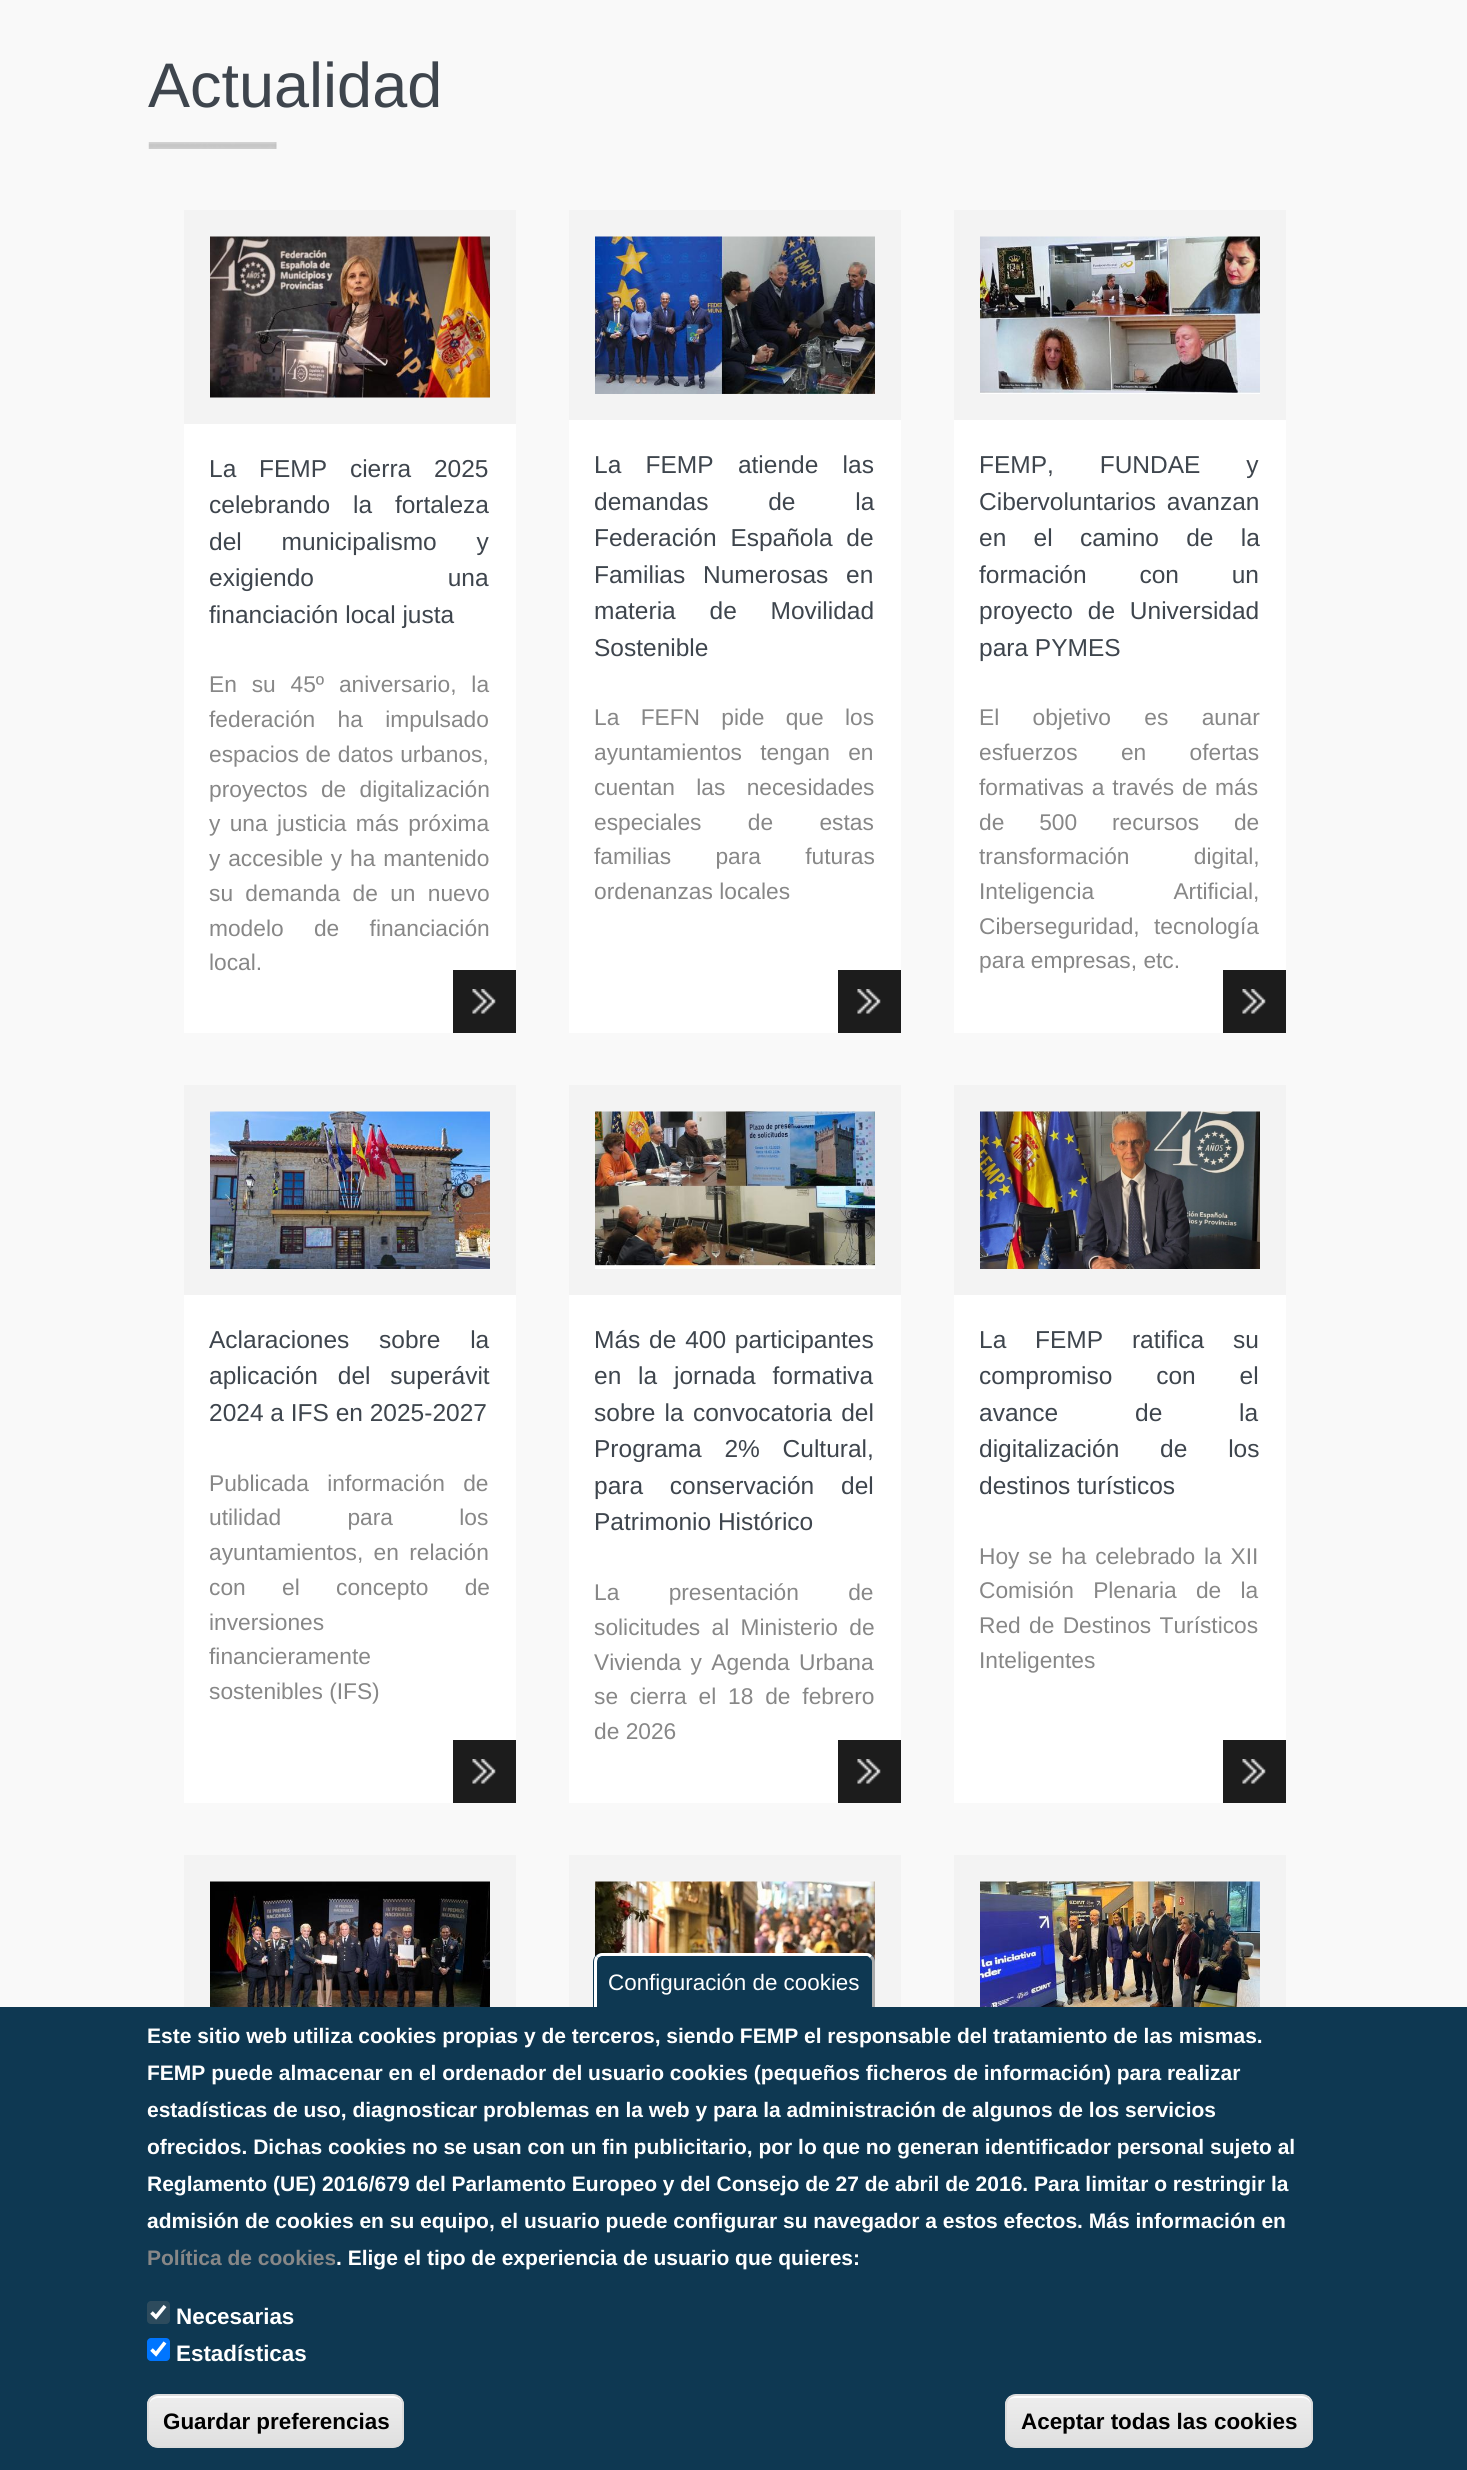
import math
import cairo


def use_color(cr, r, g, b):
  cr.set_source_rgb(r / 255, g / 255, b / 255)

def text(cr, x, y, s, family, size, color, bold=False, italic=False):
  cr.select_font_face(family, cairo.FONT_SLANT_ITALIC if italic else cairo.FONT_SLANT_NORMAL, cairo.FONT_WEIGHT_BOLD if bold else cairo.FONT_WEIGHT_NORMAL)
  cr.set_font_size(size)
  use_color(cr, *color)
  cr.move_to(x, y)
  cr.show_text(s)

def spaced_text(cr, x, y, s, letter, word):
  cr.move_to(x, y)
  for ch in s:
    cr.show_text(ch)
    cr.rel_move_to(letter + word * (ch == ' '), 0)

def box(cr, x, y, w, h, *color):
  use_color(cr, *color)
  cr.rectangle(x, y, w, h)
  cr.fill()

def round_rect(cr, x, y, w, h, r):
  cr.new_sub_path()
  for i, (u, v) in enumerate([(x + w - r, y + h - r), (x + r, y + h - r), (x + r, y + r), (x + w - r, y + r)]):
    cr.arc(u, v, r, i * math.pi / 2, (i + 1) * math.pi / 2)
  cr.close_path()

def picture(cr, path, x, y, w, h):
  cr.save()
  cr.set_source_surface(cairo.ImageSurface.create_from_png(path), x, y)
  cr.rectangle(x, y, w, h)
  cr.fill()
  cr.restore()

def draw(cr):
  use_color(cr, 249, 249, 249)
  cr.paint()
  picture(cr, "img_01.png", 148, 142, 129, 7)
  box(cr, 184, 424, 332, 609, 255, 255, 255)
  box(cr, 184, 210, 332, 214, 243, 243, 243)
  picture(cr, "img_02.png", 210, 236, 280, 162)
  box(cr, 453, 970, 63, 63, 28, 28, 28)
  picture(cr, "img_03.png", 472, 989, 24, 25)
  box(cr, 569, 420, 332, 613, 255, 255, 255)
  box(cr, 569, 210, 332, 210, 243, 243, 243)
  picture(cr, "img_04.png", 595, 236, 280, 158)
  box(cr, 838, 970, 63, 63, 28, 28, 28)
  picture(cr, "img_05.png", 857, 989, 24, 25)
  box(cr, 954, 420, 332, 613, 255, 255, 255)
  box(cr, 954, 210, 332, 210, 243, 243, 243)
  picture(cr, "img_06.png", 980, 236, 280, 158)
  box(cr, 1223, 970, 63, 63, 28, 28, 28)
  picture(cr, "img_03.png", 1242, 989, 24, 25)
  box(cr, 184, 1295, 332, 508, 255, 255, 255)
  box(cr, 184, 1085, 332, 210, 243, 243, 243)
  picture(cr, "img_07.png", 210, 1111, 280, 158)
  box(cr, 453, 1740, 63, 63, 28, 28, 28)
  picture(cr, "img_03.png", 472, 1759, 24, 25)
  box(cr, 569, 1295, 332, 508, 255, 255, 255)
  box(cr, 569, 1085, 332, 210, 243, 243, 243)
  picture(cr, "img_08.png", 595, 1111, 280, 158)
  box(cr, 838, 1740, 63, 63, 28, 28, 28)
  picture(cr, "img_05.png", 857, 1759, 24, 25)
  box(cr, 954, 1295, 332, 508, 255, 255, 255)
  box(cr, 954, 1085, 332, 210, 243, 243, 243)
  picture(cr, "img_09.png", 980, 1111, 280, 158)
  box(cr, 1223, 1740, 63, 63, 28, 28, 28)
  picture(cr, "img_03.png", 1242, 1759, 24, 25)
  box(cr, 184, 1855, 332, 152, 243, 243, 243)
  picture(cr, "img_10.png", 210, 1881, 280, 126)
  box(cr, 569, 1855, 332, 152, 243, 243, 243)
  picture(cr, "img_11.png", 595, 1881, 280, 81)
  box(cr, 954, 1855, 332, 152, 243, 243, 243)
  picture(cr, "img_12.png", 980, 1881, 280, 126)
  box(cr, 0, 2007, 1467, 463, 14, 56, 82)
  cr.new_path()
  cr.move_to(602, 1953)
  cr.line_to(866, 1953)
  cr.curve_to(871, 1953, 875, 1957, 875, 1962)
  cr.line_to(875, 2007)
  cr.line_to(593, 2007)
  cr.line_to(593, 1962)
  cr.curve_to(593, 1957, 597, 1953, 602, 1953)
  cr.close_path()
  cr.fill()
  use_color(cr, 255, 255, 255)
  cr.new_path()
  cr.move_to(602, 1953)
  cr.line_to(867, 1953)
  cr.curve_to(869, 1953, 871, 1954, 872, 1956)
  cr.line_to(870, 1958)
  cr.curve_to(869, 1957, 868, 1956, 867, 1956)
  cr.line_to(602, 1956)
  cr.curve_to(601, 1956, 599, 1957, 598, 1958)
  cr.line_to(596, 1956)
  cr.curve_to(598, 1954, 600, 1953, 602, 1953)
  cr.close_path()
  cr.fill()
  use_color(cr, 170, 170, 170)
  cr.new_path()
  cr.move_to(870, 1958)
  cr.curve_to(871, 1959, 872, 1960, 872, 1962)
  cr.line_to(872, 2007)
  cr.line_to(875, 2007)
  cr.line_to(875, 1962)
  cr.curve_to(875, 1959, 874, 1957, 872, 1956)
  cr.close_path()
  cr.fill()
  use_color(cr, 255, 255, 255)
  cr.new_path()
  cr.move_to(596, 1956)
  cr.line_to(598, 1958)
  cr.curve_to(598, 1959, 597, 1960, 597, 1962)
  cr.line_to(597, 2007)
  cr.line_to(594, 2007)
  cr.line_to(594, 1962)
  cr.curve_to(594, 1959, 595, 1957, 596, 1956)
  cr.close_path()
  cr.fill()
  use_color(cr, 45, 75, 93)
  round_rect(cr, 147, 2301, 23, 23, 4)
  cr.fill()
  cr.new_path()
  cr.move_to(151.5, 2312.5)
  cr.line_to(156, 2317)
  cr.line_to(165, 2306)
  use_color(cr, 255, 255, 255)
  cr.set_line_width(3.6)
  cr.stroke()
  use_color(cr, 0, 117, 255)
  round_rect(cr, 147, 2338, 23, 23, 4)
  cr.fill()
  cr.new_path()
  cr.move_to(151.5, 2349.5)
  cr.line_to(156, 2354)
  cr.line_to(165, 2342.5)
  use_color(cr, 255, 255, 255)
  cr.stroke()
  cr.save()
  round_rect(cr, 147, 2394, 257, 54, 11)
  cr.clip()
  gradient = cairo.LinearGradient(276, 2396, 276, 2447)
  gradient.add_color_stop_rgba(0.05, 0.929, 0.929, 0.929, 1)
  gradient.add_color_stop_rgba(1, 0.875, 0.875, 0.875, 1)
  cr.set_source(gradient)
  cr.rectangle(147, 2396, 257, 51)
  cr.fill()
  cr.restore()
  cr.new_path()
  cr.move_to(158, 2398)
  cr.line_to(394, 2398)
  cr.curve_to(399, 2398, 402, 2401, 402, 2406)
  cr.line_to(402, 2440)
  cr.line_to(401, 2443)
  cr.curve_to(402, 2442, 403, 2440, 403, 2438)
  cr.line_to(403, 2405)
  cr.curve_to(403, 2400, 399, 2396, 394, 2396)
  cr.line_to(158, 2396)
  cr.curve_to(153, 2396, 149, 2400, 149, 2405)
  cr.line_to(149, 2406)
  cr.curve_to(149, 2401, 153, 2398, 158, 2398)
  cr.close_path()
  cr.fill()
  round_rect(cr, 148, 2395, 255, 52, 10)
  use_color(cr, 220, 220, 220)
  cr.set_line_width(2)
  cr.stroke()
  cr.save()
  round_rect(cr, 1005, 2394, 308, 54, 11)
  cr.clip()
  gradient = cairo.LinearGradient(1159, 2396, 1159, 2447)
  gradient.add_color_stop_rgba(0.05, 0.929, 0.929, 0.929, 1)
  gradient.add_color_stop_rgba(1, 0.875, 0.875, 0.875, 1)
  cr.set_source(gradient)
  cr.rectangle(1005, 2396, 308, 51)
  cr.fill()
  cr.restore()
  use_color(cr, 255, 255, 255)
  cr.new_path()
  cr.move_to(1015, 2398)
  cr.line_to(1302, 2398)
  cr.curve_to(1307, 2398, 1311, 2401, 1311, 2406)
  cr.line_to(1311, 2405)
  cr.curve_to(1311, 2400, 1307, 2396, 1302, 2396)
  cr.line_to(1015, 2396)
  cr.curve_to(1010, 2396, 1006, 2400, 1006, 2405)
  cr.line_to(1006, 2406)
  cr.curve_to(1006, 2401, 1010, 2398, 1015, 2398)
  cr.close_path()
  cr.fill()
  round_rect(cr, 1006, 2395, 306, 52, 10)
  use_color(cr, 220, 220, 220)
  cr.stroke()
  text(cr, 148, 107, "Actualidad", "Liberation Sans", 63, (62, 69, 77))
  cr.set_font_size(24.5)
  spaced_text(cr, 209, 477, "La FEMP cierra 2025", 0, 16)
  spaced_text(cr, 209, 513, "celebrando la fortaleza", 0, 16)
  spaced_text(cr, 209, 550, "del municipalismo y", 0, 33)
  spaced_text(cr, 209, 586, "exigiendo una", 0, 127)
  text(cr, 209, 623, "financiación local justa", "Liberation Sans", 24.5, (62, 69, 77))
  cr.set_font_size(22.75)
  use_color(cr, 135, 135, 135)
  spaced_text(cr, 209, 692, "En su 45º aniversario, la", 0, 8.5)
  spaced_text(cr, 209, 727, "federación ha impulsado", 0, 16)
  spaced_text(cr, 209, 762, "espacios de datos urbanos,", 0, 0.5)
  spaced_text(cr, 209, 797, "proyectos de digitalización", 0, 7)
  spaced_text(cr, 209, 831, "y una justicia más próxima", 0, 3)
  spaced_text(cr, 209, 866, "y accesible y ha mantenido", 0, 1.5)
  spaced_text(cr, 209, 901, "su demanda de un nuevo", 0, 6)
  spaced_text(cr, 209, 936, "modelo de financiación", 0, 24)
  text(cr, 209, 970, "local.", "Liberation Sans", 22.75, (135, 135, 135))
  cr.set_font_size(24.5)
  use_color(cr, 62, 69, 77)
  spaced_text(cr, 594, 473, "La FEMP atiende las", 0, 17.5)
  spaced_text(cr, 594, 510, "demandas de la", 0, 53)
  spaced_text(cr, 594, 546, "Federación Española de", 0, 7)
  spaced_text(cr, 594, 583, "Familias Numerosas en", 0, 11)
  spaced_text(cr, 594, 619, "materia de Movilidad", 0, 27)
  text(cr, 594, 656, "Sostenible", "Liberation Sans", 24.5, (62, 69, 77))
  cr.set_font_size(22.75)
  use_color(cr, 135, 135, 135)
  spaced_text(cr, 594, 725, "La FEFN pide que los", 0, 15)
  spaced_text(cr, 594, 760, "ayuntamientos tengan en", 0, 12)
  spaced_text(cr, 594, 795, "cuentan las necesidades", 0, 15)
  spaced_text(cr, 594, 830, "especiales de estas", 0, 40)
  spaced_text(cr, 594, 864, "familias para futuras", 0, 38)
  text(cr, 594, 899, "ordenanzas locales", "Liberation Sans", 22.75, (135, 135, 135))
  cr.set_font_size(24.5)
  use_color(cr, 62, 69, 77)
  spaced_text(cr, 979, 473, "FEMP, FUNDAE y", 0, 39)
  spaced_text(cr, 979, 510, "Cibervoluntarios avanzan", 0, 4)
  spaced_text(cr, 979, 546, "en el camino de la", 0, 20.5)
  spaced_text(cr, 979, 583, "formación con un", 0, 46)
  spaced_text(cr, 979, 619, "proyecto de Universidad", 0, 8)
  text(cr, 979, 656, "para PYMES", "Liberation Sans", 24.5, (62, 69, 77))
  cr.set_font_size(22.75)
  use_color(cr, 135, 135, 135)
  spaced_text(cr, 979, 725, "El objetivo es aunar", 0, 27)
  spaced_text(cr, 979, 760, "esfuerzos en ofertas", 0, 37)
  spaced_text(cr, 979, 795, "formativas a través de más", 0, 1.5)
  spaced_text(cr, 979, 830, "de 500 recursos de", 0, 28.5)
  spaced_text(cr, 979, 864, "transformación digital,", 0, 58)
  spaced_text(cr, 979, 899, "Inteligencia Artificial,", 0, 73)
  spaced_text(cr, 979, 934, "Ciberseguridad, tecnología", 0, 8)
  text(cr, 979, 968, "para empresas, etc.", "Liberation Sans", 22.75, (135, 135, 135))
  cr.set_font_size(24.5)
  use_color(cr, 62, 69, 77)
  spaced_text(cr, 209, 1348, "Aclaraciones sobre la", 0, 23)
  spaced_text(cr, 209, 1384, "aplicación del superávit", 0, 13)
  text(cr, 209, 1421, "2024 a IFS en 2025-2027", "Liberation Sans", 24.5, (62, 69, 77))
  cr.set_font_size(22.75)
  use_color(cr, 135, 135, 135)
  spaced_text(cr, 209, 1491, "Publicada información de", 0, 12)
  spaced_text(cr, 209, 1525, "utilidad para los", 0, 60)
  spaced_text(cr, 209, 1560, "ayuntamientos, en relación", 0, 4)
  spaced_text(cr, 209, 1595, "con el concepto de", 0, 30)
  text(cr, 209, 1630, "inversiones", "Liberation Sans", 22.75, (135, 135, 135))
  text(cr, 209, 1664, "financieramente", "Liberation Sans", 22.75, (135, 135, 135))
  text(cr, 209, 1699, "sostenibles (IFS)", "Liberation Sans", 22.75, (135, 135, 135))
  cr.set_font_size(24.5)
  use_color(cr, 62, 69, 77)
  spaced_text(cr, 594, 1348, "Más de 400 participantes", 0, 2)
  spaced_text(cr, 594, 1384, "en la jornada formativa", 0, 10)
  spaced_text(cr, 594, 1421, "sobre la convocatoria del", 0, 2.5)
  spaced_text(cr, 594, 1457, "Programa 2% Cultural,", 0, 16)
  spaced_text(cr, 594, 1494, "para conservación del", 0, 20)
  text(cr, 594, 1530, "Patrimonio Histórico", "Liberation Sans", 24.5, (62, 69, 77))
  cr.set_font_size(22.75)
  use_color(cr, 135, 135, 135)
  spaced_text(cr, 594, 1600, "La presentación de", 0, 43)
  spaced_text(cr, 594, 1635, "solicitudes al Ministerio de", 0, 5)
  spaced_text(cr, 594, 1670, "Vivienda y Agenda Urbana", 0, 3)
  spaced_text(cr, 594, 1704, "se cierra el 18 de febrero", 0, 5.5)
  text(cr, 594, 1739, "de 2026", "Liberation Sans", 22.75, (135, 135, 135))
  cr.set_font_size(24.5)
  use_color(cr, 62, 69, 77)
  spaced_text(cr, 979, 1348, "La FEMP ratifica su", 0, 22)
  spaced_text(cr, 979, 1384, "compromiso con el", 0, 37)
  text(cr, 979, 1421, "avance", "Liberation Sans", 24.5, (62, 69, 77))
  spaced_text(cr, 1135, 1421, "de la", 0, 70)
  spaced_text(cr, 979, 1457, "digitalización de los", 0, 34)
  text(cr, 979, 1494, "destinos turísticos", "Liberation Sans", 24.5, (62, 69, 77))
  cr.set_font_size(22.75)
  use_color(cr, 135, 135, 135)
  spaced_text(cr, 979, 1564, "Hoy se ha celebrado la XII", 0, 2.5)
  spaced_text(cr, 979, 1598, "Comisión Plenaria de la", 0, 13)
  spaced_text(cr, 979, 1633, "Red de Destinos Turísticos", 0, 2)
  text(cr, 979, 1668, "Inteligentes", "Liberation Sans", 22.75, (135, 135, 135))
  text(cr, 608, 1990, "Configuración de cookies", "Liberation Sans", 22.4, (255, 255, 255))
  text(cr, 147, 2043, "Este sitio web utiliza cookies propias y de terceros, siendo FEMP el responsable del tratamiento de las mismas.", "Liberation Sans", 21, (255, 255, 255), bold=True)
  text(cr, 147, 2080, "FEMP puede almacenar en el ordenador del usuario cookies (pequeños ficheros de información) para realizar", "Liberation Sans", 21, (255, 255, 255), bold=True)
  text(cr, 147, 2117, "estadísticas de uso, diagnosticar problemas en la web y para la administración de algunos de los servicios", "Liberation Sans", 21, (255, 255, 255), bold=True)
  text(cr, 147, 2154, "ofrecidos. Dichas cookies no se usan con un fin publicitario, por lo que no generan identificador personal sujeto al", "Liberation Sans", 21, (255, 255, 255), bold=True)
  text(cr, 147, 2191, "Reglamento (UE) 2016/679 del Parlamento Europeo y del Consejo de 27 de abril de 2016. Para limitar o restringir la", "Liberation Sans", 21, (255, 255, 255), bold=True)
  text(cr, 147, 2228, "admisión de cookies en su equipo, el usuario puede configurar su navegador a estos efectos. Más información en", "Liberation Sans", 21, (255, 255, 255), bold=True)
  text(cr, 147, 2265, "Política de cookies", "Liberation Sans", 21, (135, 135, 135), bold=True)
  text(cr, 336, 2265, ". Elige el tipo de experiencia de usuario que quieres:", "Liberation Sans", 21, (255, 255, 255), bold=True)
  text(cr, 176, 2324, "Necesarias", "Liberation Sans", 22.4, (255, 255, 255), bold=True)
  text(cr, 176, 2361, "Estadísticas", "Liberation Sans", 22.4, (255, 255, 255), bold=True)
  text(cr, 163, 2429, "Guardar preferencias", "Liberation Sans", 22.4, (0, 0, 0), bold=True)
  text(cr, 1021, 2429, "Aceptar todas las cookies", "Liberation Sans", 22.4, (0, 0, 0), bold=True)


surface = cairo.ImageSurface(cairo.FORMAT_RGB24, 1467, 2470)
cr = cairo.Context(surface)
options = cairo.FontOptions()
options.set_hint_metrics(cairo.HINT_METRICS_OFF)
options.set_hint_style(cairo.HINT_STYLE_NONE)
cr.set_font_options(options)
cr.set_miter_limit(4)
draw(cr)
surface.write_to_png("out.png")
